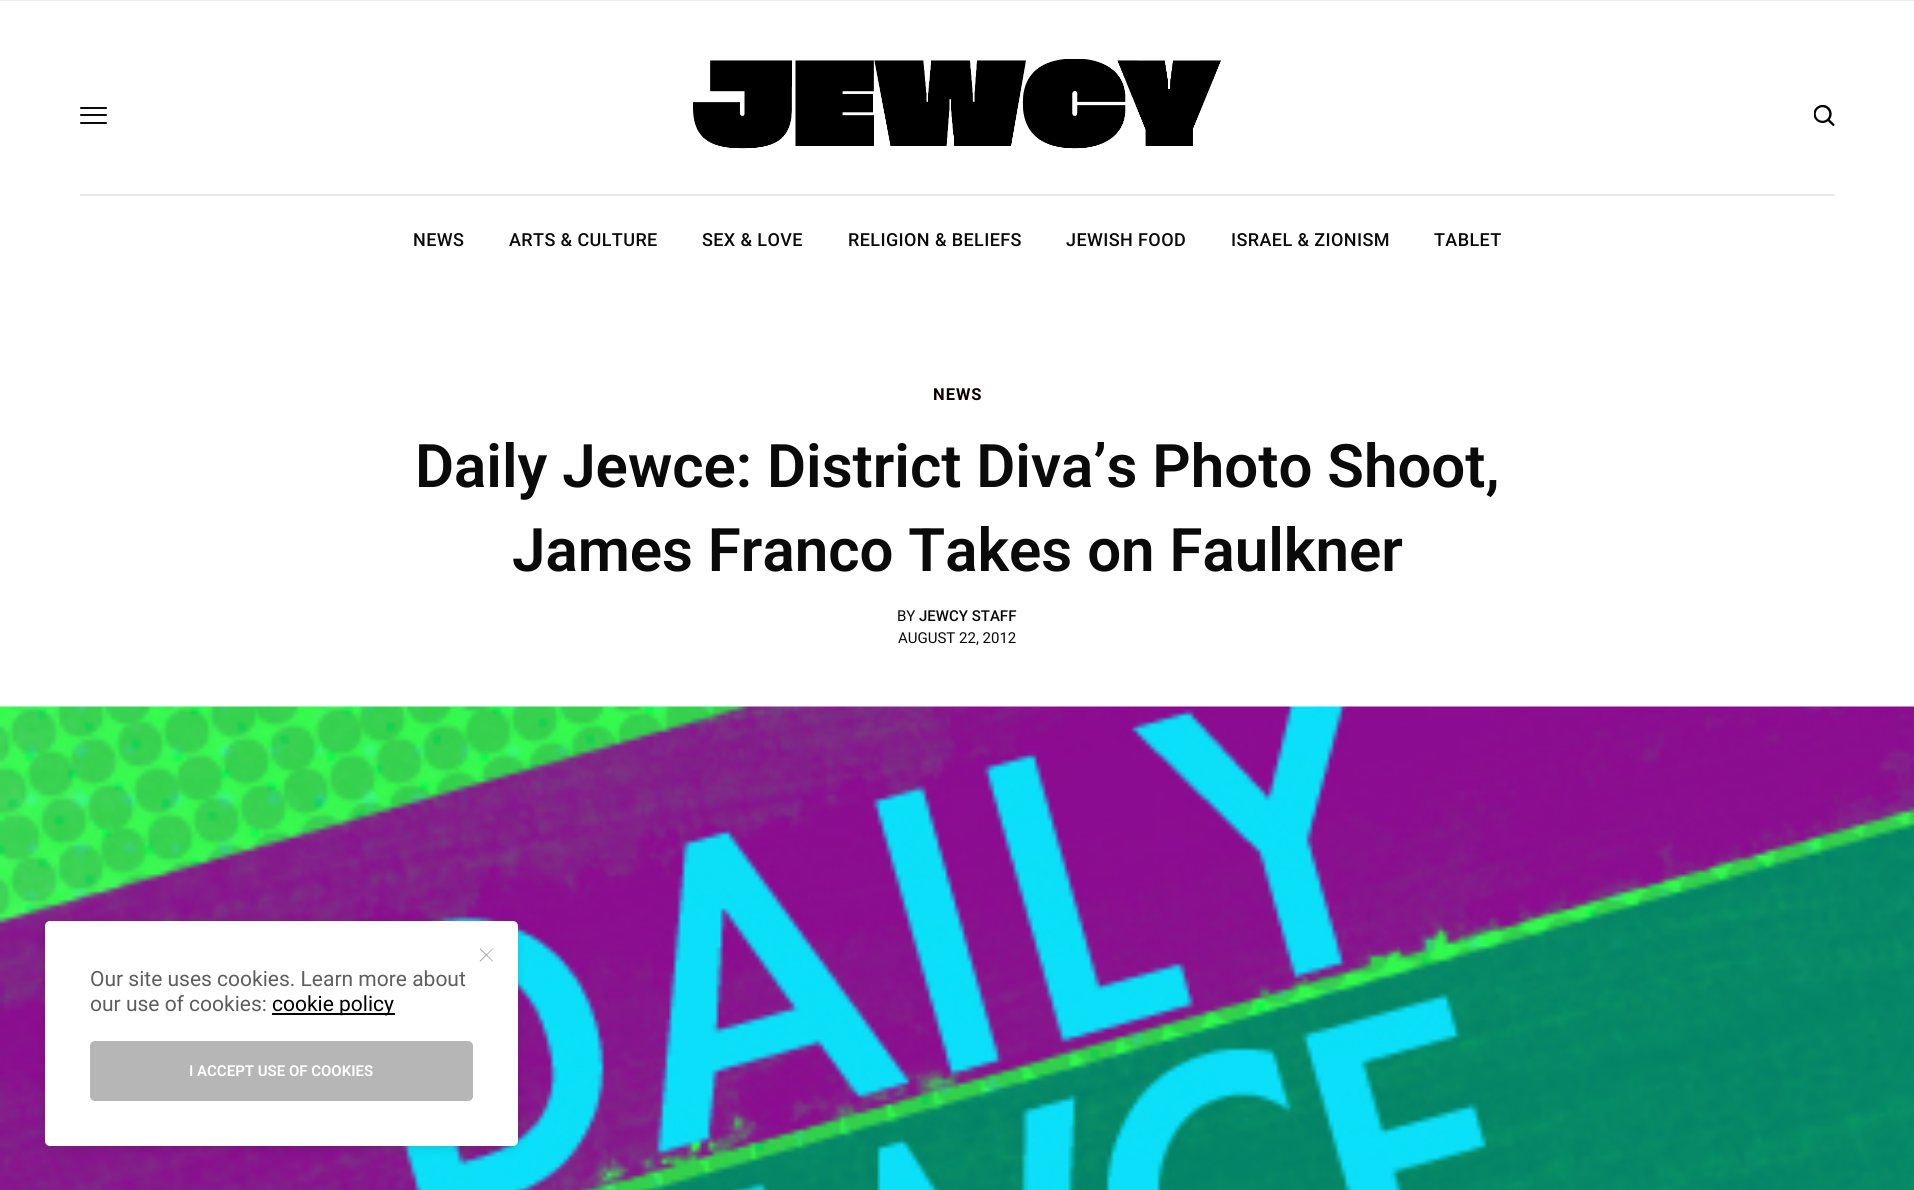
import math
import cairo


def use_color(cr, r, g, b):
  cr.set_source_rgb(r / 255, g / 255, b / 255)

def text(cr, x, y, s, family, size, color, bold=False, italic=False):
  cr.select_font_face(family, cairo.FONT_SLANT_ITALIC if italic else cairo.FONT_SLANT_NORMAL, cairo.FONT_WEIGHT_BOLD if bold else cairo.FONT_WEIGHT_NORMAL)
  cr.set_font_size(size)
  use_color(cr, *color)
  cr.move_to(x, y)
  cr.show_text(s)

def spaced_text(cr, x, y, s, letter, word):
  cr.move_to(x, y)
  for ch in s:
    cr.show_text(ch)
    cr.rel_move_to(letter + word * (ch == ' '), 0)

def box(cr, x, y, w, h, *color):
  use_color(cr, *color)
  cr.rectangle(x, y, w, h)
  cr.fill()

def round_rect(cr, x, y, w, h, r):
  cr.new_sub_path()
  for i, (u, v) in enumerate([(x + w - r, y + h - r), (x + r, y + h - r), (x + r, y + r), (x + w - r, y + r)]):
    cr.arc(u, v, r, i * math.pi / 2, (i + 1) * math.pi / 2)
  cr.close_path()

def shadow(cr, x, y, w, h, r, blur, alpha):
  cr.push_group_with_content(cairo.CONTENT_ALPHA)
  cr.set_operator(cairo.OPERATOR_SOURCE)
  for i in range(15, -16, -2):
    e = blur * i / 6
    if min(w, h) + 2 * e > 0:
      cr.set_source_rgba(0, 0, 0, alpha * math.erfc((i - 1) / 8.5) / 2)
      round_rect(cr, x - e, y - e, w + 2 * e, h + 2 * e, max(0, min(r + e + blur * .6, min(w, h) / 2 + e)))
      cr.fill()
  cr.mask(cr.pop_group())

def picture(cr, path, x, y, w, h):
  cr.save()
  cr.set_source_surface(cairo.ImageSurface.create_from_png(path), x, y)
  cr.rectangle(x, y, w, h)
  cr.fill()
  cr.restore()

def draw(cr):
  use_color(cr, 255, 255, 255)
  cr.paint()
  box(cr, 0, 0, 1914, 1, 235, 235, 235)
  use_color(cr, 10, 10, 10)
  round_rect(cr, 80, 107, 27, 2, 1)
  cr.fill()
  round_rect(cr, 80, 114, 27, 2, 1)
  cr.fill()
  round_rect(cr, 80, 122, 27, 2, 1)
  cr.fill()
  picture(cr, "img_01.png", 693, 59, 528, 90)
  picture(cr, "img_02.png", 1814, 105, 21, 21)
  box(cr, 80, 194, 1755, 2, 233, 233, 233)
  picture(cr, "img_03.png", 0, 706, 1914, 484)
  use_color(cr, 0, 0, 0)
  shadow(cr, 45, 924, 473, 225, 5, 5, 0.1)
  use_color(cr, 255, 255, 255)
  round_rect(cr, 45, 921, 473, 225, 5)
  cr.fill()
  use_color(cr, 163, 163, 163)
  cr.new_path()
  cr.move_to(480.5, 948.5)
  cr.line_to(493, 961)
  cr.line_to(492.5, 961.5)
  cr.line_to(479.5, 949)
  cr.close_path()
  cr.fill()
  cr.new_path()
  cr.move_to(479.5, 961)
  cr.line_to(492.5, 948.5)
  cr.line_to(493, 949)
  cr.line_to(480.5, 961.5)
  cr.close_path()
  cr.fill()
  box(cr, 272, 1013, 123, 2, 0, 0, 0)
  use_color(cr, 182, 182, 182)
  round_rect(cr, 90, 1041, 383, 60, 5)
  cr.fill()
  cr.select_font_face("Roboto Medium")
  cr.set_font_size(18)
  use_color(cr, 10, 10, 10)
  spaced_text(cr, 413, 246, "NEWS", 0.4, 0)
  spaced_text(cr, 509, 246, "ARTS & CULTURE", 0.4, 0)
  spaced_text(cr, 702, 246, "SEX & LOVE", 0.4, 0)
  spaced_text(cr, 848, 246, "RELIGION & BELIEFS", 0.4, 0)
  spaced_text(cr, 1066, 246, "JEWISH FOOD", 0.4, 0)
  spaced_text(cr, 1231, 246, "ISRAEL & ZIONISM", 0.4, 0)
  spaced_text(cr, 1434, 246, "TABLET", 0.4, 0)
  cr.select_font_face("Roboto", cairo.FONT_SLANT_NORMAL, cairo.FONT_WEIGHT_BOLD)
  cr.set_font_size(16.5)
  use_color(cr, 10, 0, 0)
  spaced_text(cr, 933, 400, "NEWS", 1, 0)
  text(cr, 415, 487, "Daily Jewce: District Diva’s Photo Shoot,", "Roboto SemiBold", 60, (10, 10, 10))
  text(cr, 512, 571, "James Franco Takes on Faulkner", "Roboto SemiBold", 60, (10, 10, 10))
  text(cr, 897, 621, "BY", "Roboto", 15, (10, 10, 10))
  text(cr, 919, 621, "JEWCY STAFF", "Roboto Medium", 15, (10, 10, 10))
  text(cr, 898, 643, "AUGUST 22, 2012", "Roboto", 15, (10, 10, 10))
  text(cr, 90, 986, "Our site uses cookies. Learn more about", "Roboto", 21, (94, 94, 94))
  text(cr, 90, 1011, "our use of cookies:", "Roboto", 21, (94, 94, 94))
  text(cr, 272, 1011, "cookie policy", "Roboto", 21, (0, 0, 0))
  text(cr, 189, 1076, "I ACCEPT USE OF COOKIES", "Roboto SemiBold", 15, (255, 255, 255))


surface = cairo.ImageSurface(cairo.FORMAT_RGB24, 1914, 1190)
cr = cairo.Context(surface)
options = cairo.FontOptions()
options.set_hint_metrics(cairo.HINT_METRICS_OFF)
options.set_hint_style(cairo.HINT_STYLE_NONE)
cr.set_font_options(options)
cr.set_miter_limit(4)
draw(cr)
surface.write_to_png("out.png")
